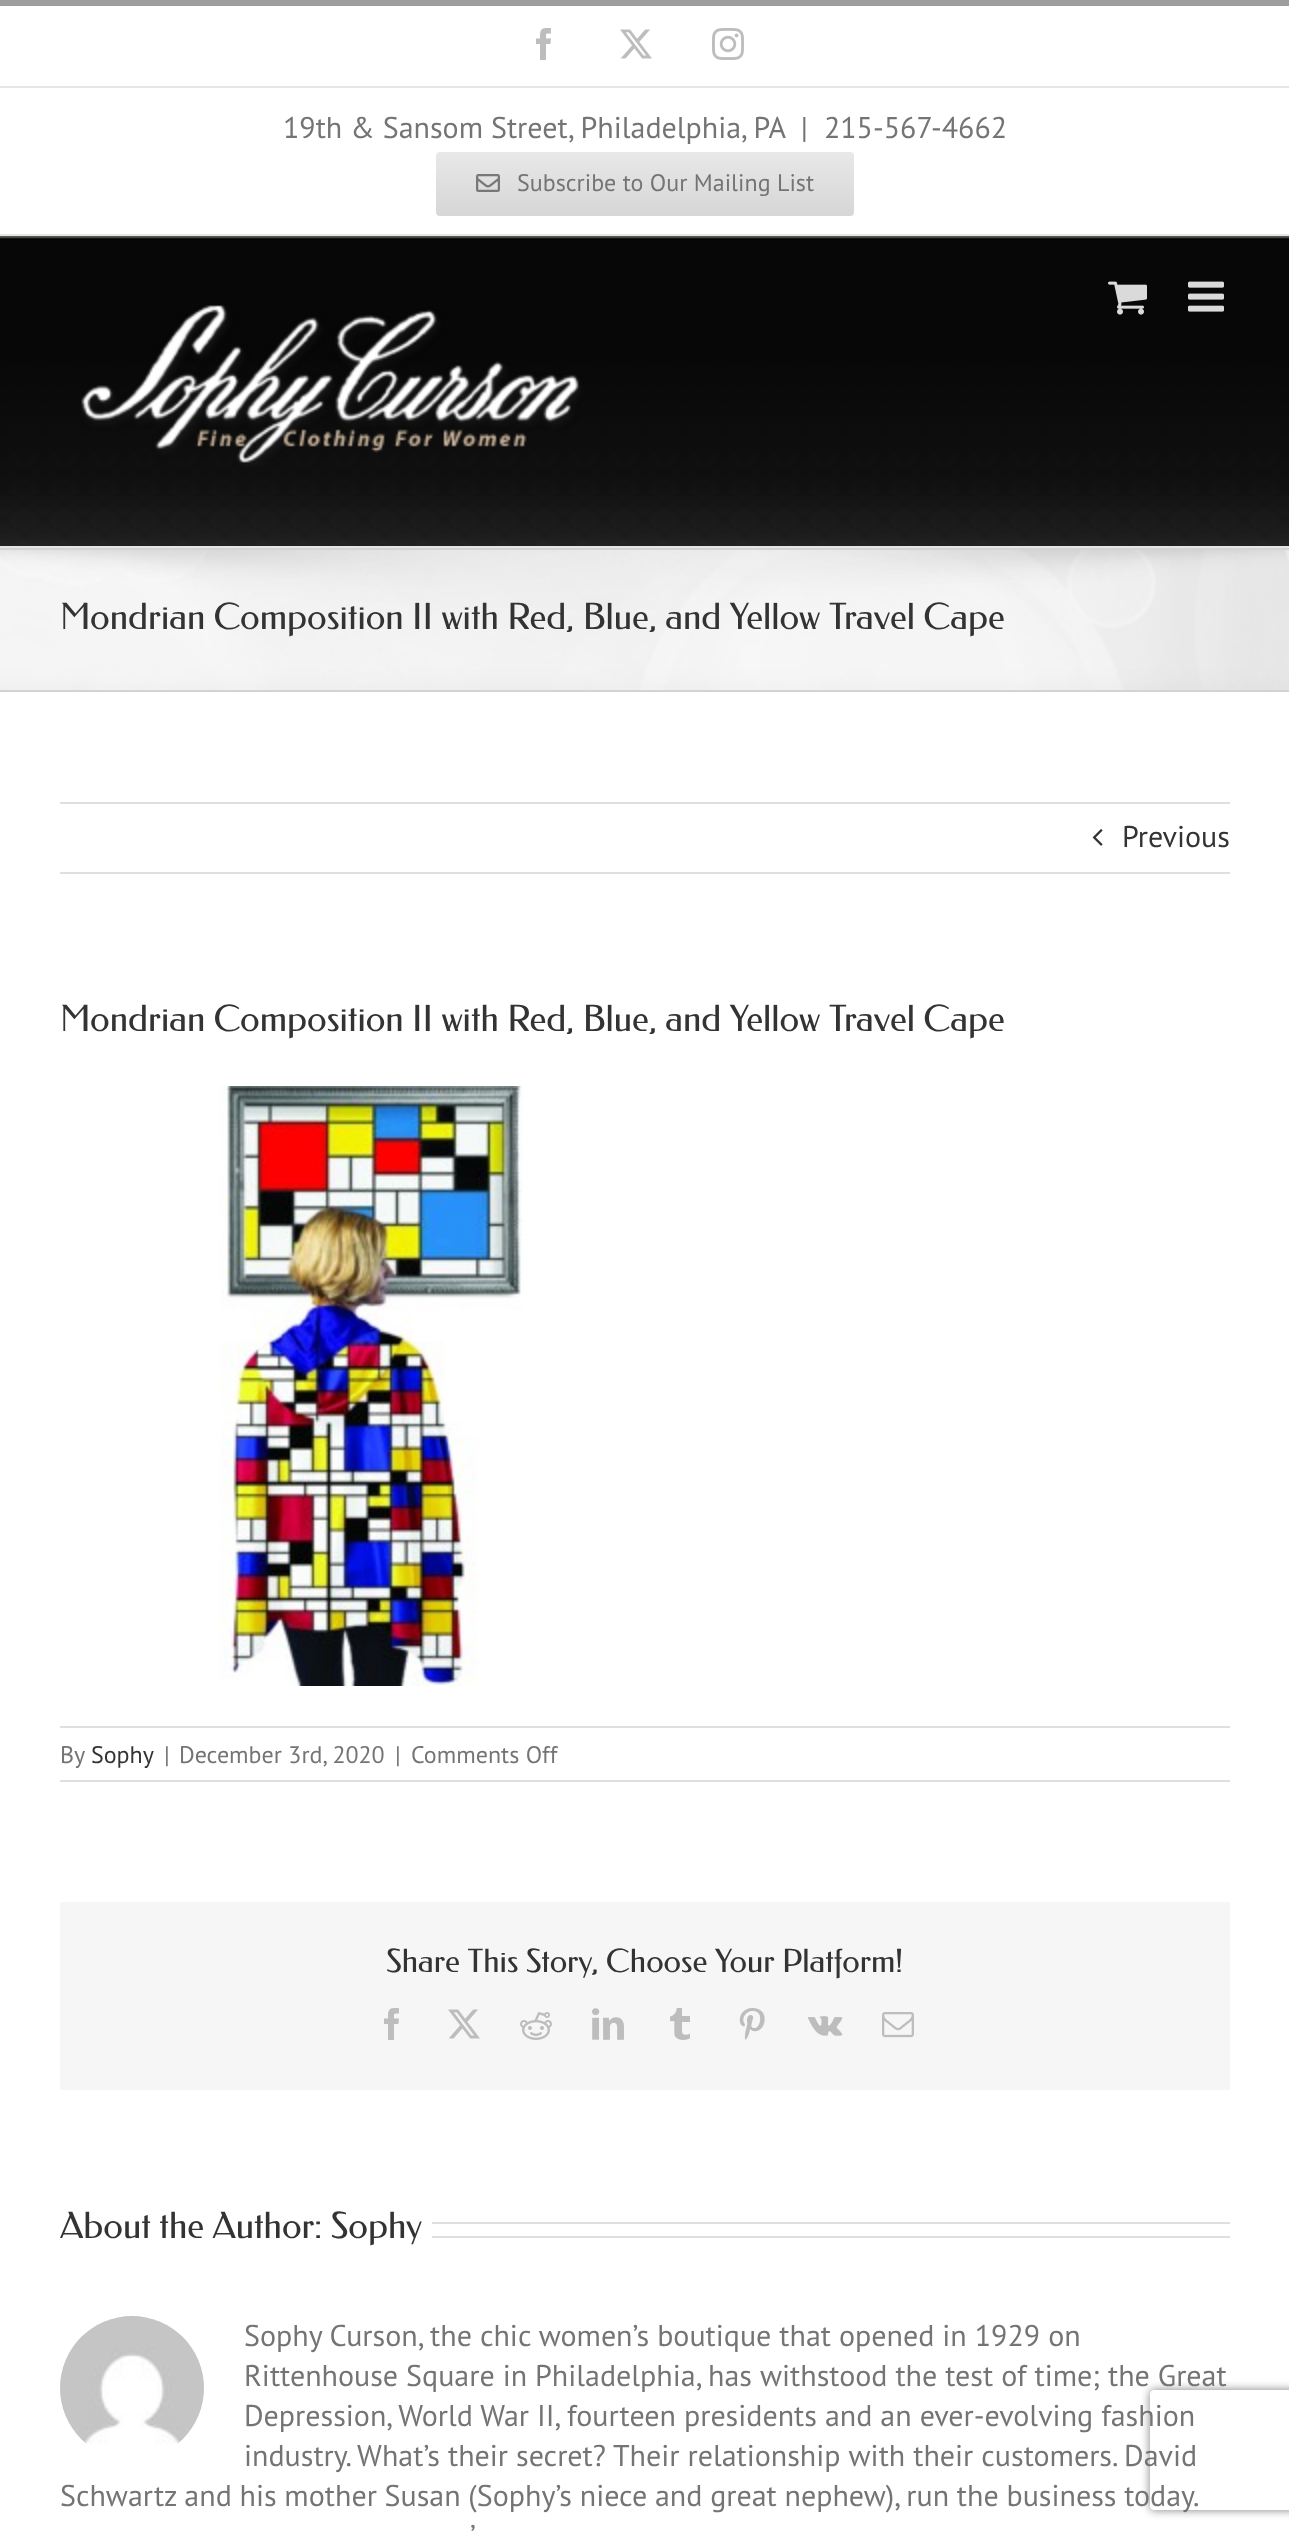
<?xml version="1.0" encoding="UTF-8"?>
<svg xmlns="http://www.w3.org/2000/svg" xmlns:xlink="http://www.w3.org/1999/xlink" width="1289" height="2538">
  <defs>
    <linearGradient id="g1" gradientUnits="userSpaceOnUse" x1="645" y1="152" x2="645" y2="216"><stop offset="0" stop-color="#e8e8e8" /><stop offset="1" stop-color="#d6d6d6" /></linearGradient>
    <clipPath id="clip1"><path d="M 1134 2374 h 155 v 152 h -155 z m 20 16 h 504 c 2 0 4 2 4 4 v 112 c 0 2 -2 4 -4 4 h -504 c -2 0 -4 -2 -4 -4 v -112 c 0 -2 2 -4 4 -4 z" clip-rule="evenodd" /></clipPath>
  </defs>
  <rect width="100%" height="100%" fill="#f6f6f6" />
  <rect y="6" width="1289" height="228" fill="#ffffff" />
  <rect width="1289" height="6" fill="#9e9e9e" />
  <rect y="234" width="1289" height="2" fill="#e5e5e5" />
  <rect y="86" width="1289" height="2" fill="#e5e5e5" />
  <image x="536" y="28" width="15" height="32" xlink:href="image1.png" />
  <image x="620" y="29" width="32" height="30" xlink:href="image2.png" />
  <image x="712" y="28" width="32" height="32" xlink:href="image3.png" />
  <rect x="436" y="152" width="418" height="64" rx="4" fill="url(#g1)" />
  <image x="476" y="174" width="24" height="18" xlink:href="image4.png" />
  <image x="0" y="236" width="1289" height="310" xlink:href="image5.png" />
  <rect y="546" width="1289" height="2" fill="#e5e5e5" />
  <image x="1108" y="281" width="39" height="34" xlink:href="image6.png" />
  <image x="1188" y="281" width="36" height="31" xlink:href="image7.png" />
  <image x="81" y="305" width="501" height="162" xlink:href="image8.png" />
  <image x="0" y="550" width="1289" height="140" xlink:href="image9.png" />
  <rect y="548" width="1289" height="2" fill="#d2d3d4" />
  <rect y="690" width="1289" height="2" fill="#d2d3d4" />
  <rect y="692" width="1289" height="1846" fill="#ffffff" />
  <rect x="60" y="802" width="1170" height="2" fill="#e0dede" />
  <rect x="60" y="872" width="1170" height="2" fill="#e0dede" />
  <image x="1092" y="829" width="11" height="17" xlink:href="image10.png" />
  <image x="219" y="1086" width="305" height="600" xlink:href="image11.png" />
  <rect x="60" y="1726" width="1170" height="2" fill="#e0dede" />
  <rect x="60" y="1780" width="1170" height="2" fill="#e0dede" />
  <rect x="60" y="1902" width="1170" height="188" fill="#f6f6f6" />
  <image x="384" y="2008" width="15" height="32" xlink:href="image12.png" />
  <image x="448" y="2009" width="32" height="30" xlink:href="image13.png" />
  <image x="520" y="2012" width="32" height="28" xlink:href="image14.png" />
  <image x="592" y="2008" width="32" height="32" xlink:href="image15.png" />
  <image x="670" y="2008" width="20" height="32" xlink:href="image16.png" />
  <image x="739" y="2008" width="26" height="32" xlink:href="image17.png" />
  <image x="808" y="2016" width="35" height="20" xlink:href="image18.png" />
  <image x="882" y="2012" width="32" height="26" xlink:href="image19.png" />
  <rect x="432" y="2222" width="798" height="2" fill="#e0dede" />
  <rect x="432" y="2236" width="798" height="2" fill="#e0dede" />
  <image x="60" y="2316" width="144" height="128" xlink:href="image20.png" />
  <g clip-path="url(#clip1)">
    <rect x="1150" y="2390" width="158" height="120" rx="4" fill="#808080" filter="blur(5px)" />
  </g>
  <text x="283" y="138" style="font-family: PT Sans; font-size: 30px; fill: #747474" xml:space="preserve">19th &amp; Sansom Street, Philadelphia, PA  |  215-567-4662</text>
  <text x="517" y="191" style="font-family: PT Sans; font-size: 24px; fill: #747474">Subscribe to Our Mailing List</text>
  <text x="60" y="629" style="font-family: Federo; font-size: 36px; fill: #333333">Mondrian Composition II with Red, Blue, and Yellow Travel Cape</text>
  <text x="1122" y="847" style="font-family: PT Sans; font-size: 30px; fill: #333333">Previous</text>
  <text x="60" y="1031" style="font-family: Federo; font-size: 36px; fill: #333333">Mondrian Composition II with Red, Blue, and Yellow Travel Cape</text>
  <text x="60" y="1763" style="font-family: PT Sans; font-size: 24px; fill: #747474">By</text>
  <text x="91" y="1763" style="font-family: PT Sans; font-size: 24px; fill: #333333">Sophy</text>
  <text x="164" y="1763" style="font-family: PT Sans; font-size: 24px; fill: #747474">|</text>
  <text x="179" y="1763" style="font-family: PT Sans; font-size: 24px; fill: #747474">December 3rd, 2020</text>
  <text x="395" y="1763" style="font-family: PT Sans; font-size: 24px; fill: #747474">|</text>
  <text x="411" y="1763" style="font-family: PT Sans; font-size: 24px; fill: #747474">Comments Off</text>
  <text x="386" y="1972" style="font-family: Federo; font-size: 32px; fill: #333333">Share This Story, Choose Your Platform!</text>
  <text x="60" y="2238" style="font-family: Federo; font-size: 36px; fill: #333333">About the Author: Sophy</text>
  <text x="244" y="2346" style="font-family: PT Sans; font-size: 30px; fill: #747474">Sophy Curson, the chic women’s boutique that opened in 1929 on</text>
  <text x="244" y="2386" style="font-family: PT Sans; font-size: 30px; fill: #747474">Rittenhouse Square in Philadelphia, has withstood the test of time; the Great</text>
  <text x="244" y="2426" style="font-family: PT Sans; font-size: 30px; fill: #747474">Depression, World War II, fourteen presidents and an ever-evolving fashion</text>
  <text x="244" y="2466" style="font-family: PT Sans; font-size: 30px; fill: #747474">industry. What’s their secret? Their relationship with their customers. David</text>
  <text x="60" y="2506" word-spacing="-0.25" style="font-family: PT Sans; font-size: 30px; fill: #747474">Schwartz and his mother Susan (Sophy’s niece and great nephew), run the business today.</text>
  <text x="470" y="2546" style="font-family: PT Sans; font-size: 30px; fill: #747474">’</text>
</svg>
